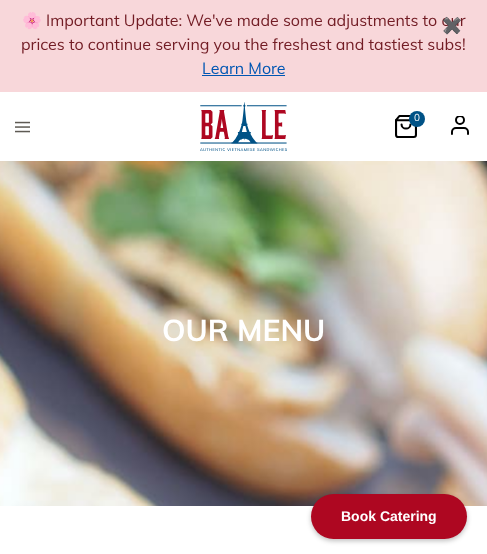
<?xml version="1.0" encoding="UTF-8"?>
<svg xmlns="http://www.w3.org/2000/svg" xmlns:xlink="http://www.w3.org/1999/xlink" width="487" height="554">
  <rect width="100%" height="100%" fill="#ffffff" />
  <rect width="487" height="92" fill="#f8d7da" />
  <rect x="202" y="75" width="83" height="1" fill="#0056b3" />
  <image x="200" y="102" width="87" height="49" xlink:href="image1.png" />
  <image x="395" y="115" width="22" height="23" xlink:href="image2.png" />
  <circle cx="417" cy="119" r="8" fill="#005286" />
  <image x="451" y="116" width="18" height="19" xlink:href="image3.png" />
  <image x="15" y="121" width="15" height="12" xlink:href="image4.png" />
  <image x="0" y="161" width="487" height="345" xlink:href="image5.png" />
  <rect x="311" y="496" width="156" height="45" rx="22.5" fill="#000000" fill-opacity="0.25" filter="blur(2.5px)" />
  <rect x="311" y="494" width="156" height="45" rx="22.5" fill="#ae0721" />
  <text x="22" y="26" style="font-family: Noto Color Emoji; font-size: 16px; fill: #721c24">🌸</text>
  <text x="46" y="26" style="font-family: Muli; font-size: 16px; fill: #721c24">Important Update: We've made some adjustments to our</text>
  <text x="442" y="31" style="font-family: Noto Color Emoji; font-size: 16px; font-weight: bold; letter-spacing: 1px; fill: #ffffff">✖️</text>
  <text x="21" y="50" style="font-family: Muli; font-size: 16px; fill: #721c24">prices to continue serving you the freshest and tastiest subs!</text>
  <text x="202" y="74" style="font-family: Muli; font-size: 16px; fill: #0056b3">Learn More</text>
  <text x="414" y="121" style="font-family: Muli; font-size: 10px; fill: #ffffff">0</text>
  <text x="162" y="341" style="font-family: Muli; font-size: 30px; font-weight: bold; fill: #ffffff">OUR MENU</text>
  <text x="341" y="521" style="font-family: Liberation Sans; font-size: 14px; font-weight: bold; fill: #ffffff">Book Catering</text>
</svg>
